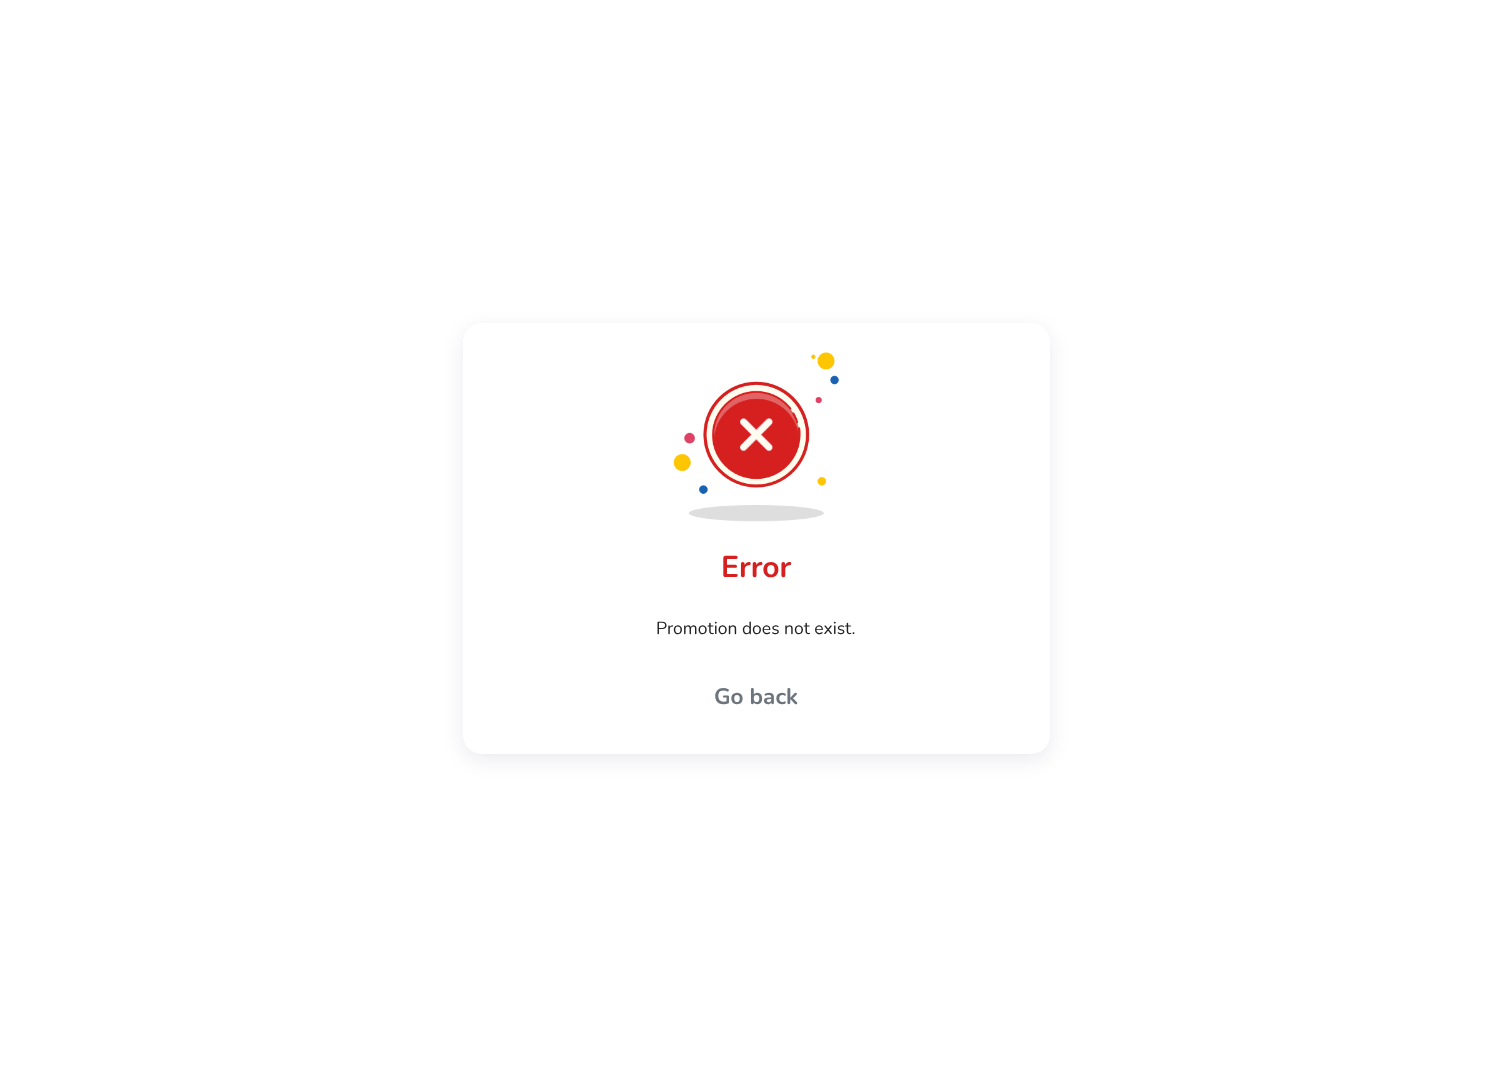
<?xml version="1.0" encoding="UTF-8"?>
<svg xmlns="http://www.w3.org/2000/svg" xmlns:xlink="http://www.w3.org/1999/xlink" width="1511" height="1074">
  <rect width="100%" height="100%" fill="#ffffff" />
  <rect x="463" y="329" width="587" height="431" rx="19" fill="#23083d" fill-opacity="0.09" filter="blur(9.5px)" />
  <rect x="463" y="323" width="587" height="431" rx="19" fill="#ffffff" />
  <image x="673" y="352" width="166" height="170" xlink:href="image1.png" />
  <text x="721" y="577" style="font-family: Nunito; font-size: 30px; font-weight: bold; fill: #d62020">Error</text>
  <text x="656" y="634" style="font-family: Nunito; font-size: 17.5px; fill: #222222">Promotion does not exist.</text>
  <text x="714" y="704" style="font-family: Nunito; font-size: 22.5px; font-weight: bold; fill: #6c757d">Go back</text>
</svg>
